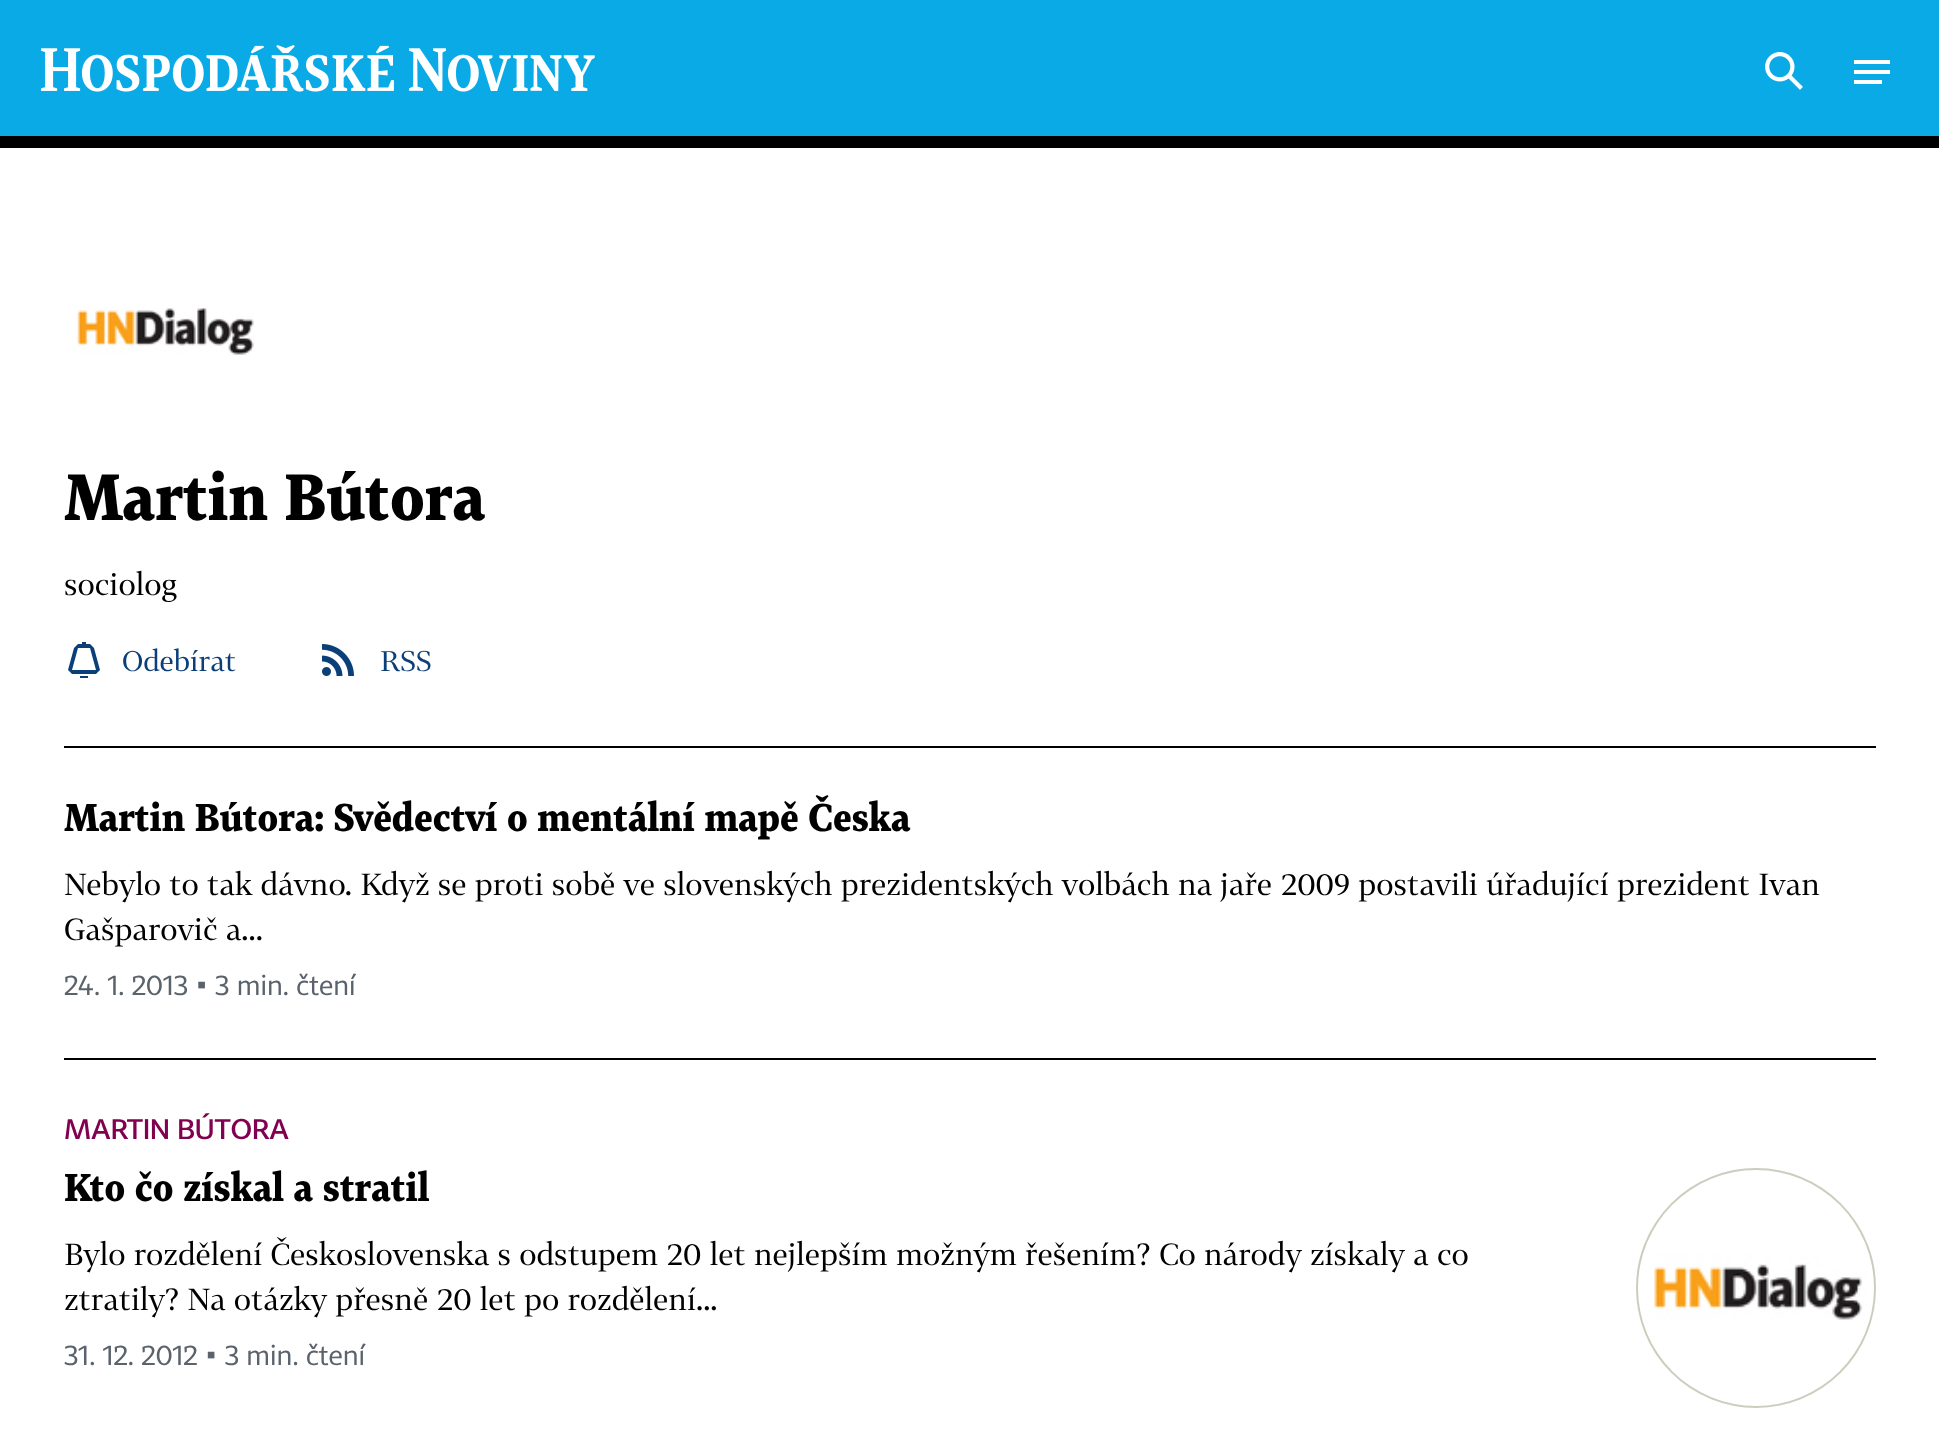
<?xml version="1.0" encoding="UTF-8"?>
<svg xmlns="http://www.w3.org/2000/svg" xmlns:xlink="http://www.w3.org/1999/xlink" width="1939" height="1442">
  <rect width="100%" height="100%" fill="#ffffff" />
  <rect width="1939" height="136" fill="#0aaae6" />
  <image x="41" y="45" width="554" height="47" xlink:href="image1.png" />
  <image x="1765" y="52" width="38" height="38" xlink:href="image2.png" />
  <path d="M 1854 64 v -4 h 36 v 4 z m 0 10 v -4 h 36 v 4 z m 0 6 v 4 h 28 v -4 z" fill="#ffffff" />
  <rect y="136" width="1939" height="12" fill="#000000" />
  <image x="77" y="307" width="177" height="48" xlink:href="image3.png" />
  <image x="68" y="642" width="32" height="36" xlink:href="image4.png" />
  <image x="322" y="644" width="32" height="32" xlink:href="image5.png" />
  <rect x="64" y="746" width="1812" height="2" fill="#000000" />
  <rect x="64" y="1058" width="1812" height="2" fill="#000000" />
  <circle cx="1756" cy="1288" r="119" fill="#cdcdbe" stroke="#cdcdbe" stroke-width="2" />
  <image x="1638" y="1170" width="236" height="236" xlink:href="image6.png" />
  <text x="64" y="520" style="font-family: 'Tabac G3'; font-size: 64px; font-weight: bold; fill: #000000">Martin Bútora</text>
  <text x="64" y="595" style="font-family: 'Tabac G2'; font-size: 30px; fill: #000000">sociolog</text>
  <text x="122" y="671" style="font-family: 'Tabac G2'; font-size: 28px; fill: #0a3f78">Odebírat</text>
  <text x="380" y="671" style="font-family: 'Tabac G2'; font-size: 28px; fill: #0a3f78">RSS</text>
  <text x="64" y="831" style="font-family: 'Tabac G3'; font-size: 38px; font-weight: bold; fill: #000000">Martin Bútora: Svědectví o mentální mapě Česka</text>
  <text x="64" y="895" style="font-family: 'Tabac G2'; font-size: 30px; fill: #000000">Nebylo to tak dávno. Když se proti sobě ve slovenských prezidentských volbách na jaře 2009 postavili úřadující prezident Ivan</text>
  <text x="64" y="940" style="font-family: 'Tabac G2'; font-size: 30px; fill: #000000">Gašparovič a...</text>
  <text x="64" y="995" style="font-family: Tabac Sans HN; font-size: 28px; fill: #5a626c">24. 1. 2013 ▪ 3 min. čtení</text>
  <text x="64" y="1139" style="font-family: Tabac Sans; font-size: 28px; font-weight: 500; fill: #820050">MARTIN BÚTORA</text>
  <text x="64" y="1201" style="font-family: 'Tabac G3'; font-size: 38px; font-weight: bold; fill: #000000">Kto čo získal a stratil</text>
  <text x="64" y="1265" style="font-family: 'Tabac G2'; font-size: 30px; fill: #000000">Bylo rozdělení Československa s odstupem 20 let nejlepším možným řešením? Co národy získaly a co</text>
  <text x="64" y="1310" style="font-family: 'Tabac G2'; font-size: 30px; fill: #000000">ztratily? Na otázky přesně 20 let po rozdělení...</text>
  <text x="64" y="1365" style="font-family: Tabac Sans HN; font-size: 28px; fill: #5a626c">31. 12. 2012 ▪ 3 min. čtení</text>
</svg>
